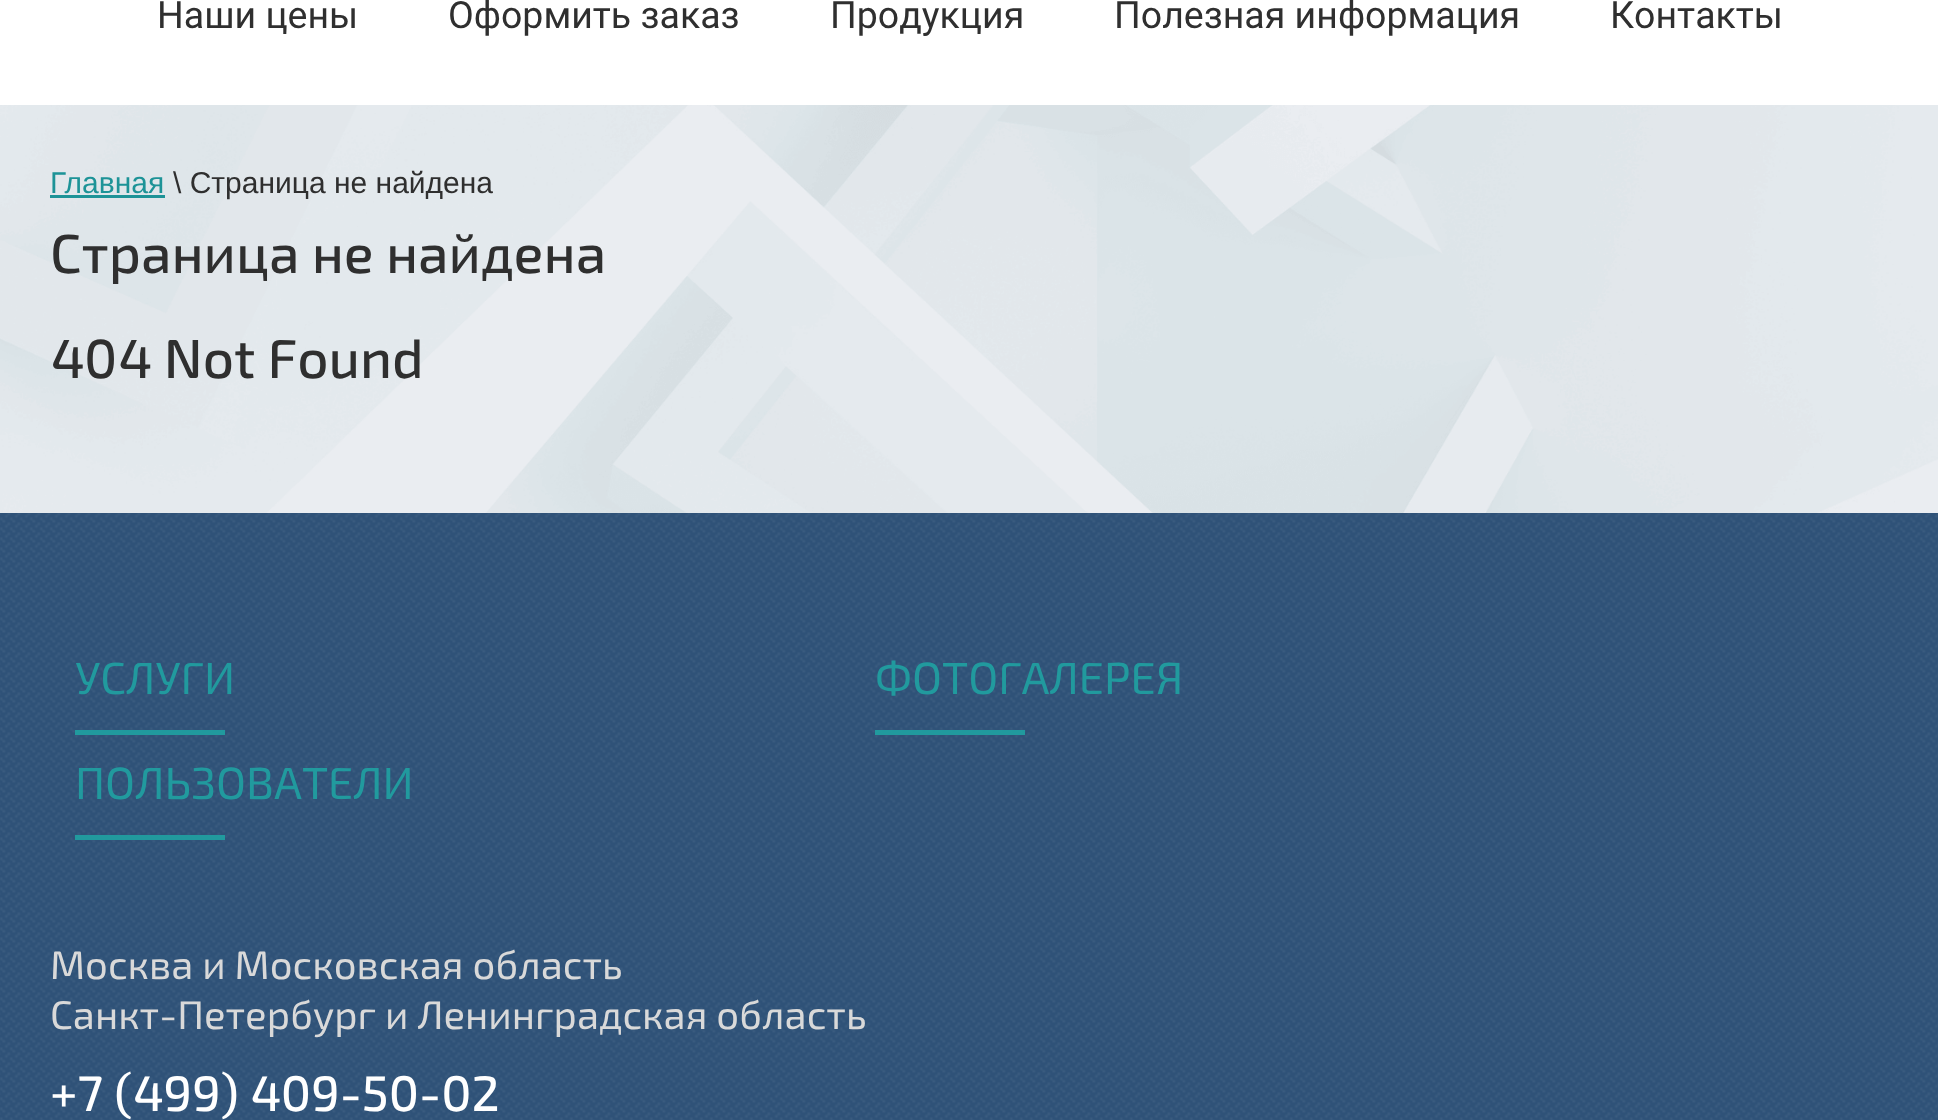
<?xml version="1.0" encoding="UTF-8"?>
<svg xmlns="http://www.w3.org/2000/svg" xmlns:xlink="http://www.w3.org/1999/xlink" width="1938" height="1120">
  <rect width="100%" height="100%" fill="#ffffff" />
  <image x="0" y="105" width="1938" height="408" xlink:href="image1.png" />
  <rect y="105" width="1938" height="408" fill="#2f5278" fill-opacity="0.1" />
  <rect x="50" y="195" width="115" height="3" fill="#1d9397" />
  <rect y="513" width="1938" height="607" fill="#2f5278" />
  <image x="0" y="513" width="1938" height="607" xlink:href="image2.png" />
  <rect x="75" y="730" width="150" height="5" fill="#219a9e" />
  <rect x="875" y="730" width="150" height="5" fill="#219a9e" />
  <rect x="75" y="835" width="150" height="5" fill="#219a9e" />
  <text x="157" y="28" style="font-family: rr; font-size: 37.5px; fill: #2f2f2f">Наши цены</text>
  <text x="448" y="28" style="font-family: rr; font-size: 37.5px; fill: #2f2f2f">Оформить заказ</text>
  <text x="830" y="28" style="font-family: rr; font-size: 37.5px; fill: #2f2f2f">Продукция</text>
  <text x="1114" y="28" style="font-family: rr; font-size: 37.5px; fill: #2f2f2f">Полезная информация</text>
  <text x="1610" y="28" style="font-family: rr; font-size: 37.5px; fill: #2f2f2f">Контакты</text>
  <text x="50" y="193" style="font-family: Liberation Sans; font-size: 30px; fill: #1d9397">Главная</text>
  <text x="173" y="193" style="font-family: Liberation Sans; font-size: 30px; fill: #2f2f2f">\ Страница не найдена</text>
  <text x="50" y="273" style="font-family: 'Exo 2'; font-size: 55px; font-weight: 500; fill: #2f2f2f">Страница не найдена</text>
  <text x="50" y="378" style="font-family: 'Exo 2'; font-size: 55px; font-weight: 500; fill: #2f2f2f">404 Not Found</text>
  <text x="75" y="694" style="font-family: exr; font-size: 45px; fill: #219a9e">УСЛУГИ</text>
  <text x="875" y="694" style="font-family: exr; font-size: 45px; fill: #219a9e">ФОТОГАЛЕРЕЯ</text>
  <text x="75" y="799" style="font-family: exr; font-size: 45px; fill: #219a9e">ПОЛЬЗОВАТЕЛИ</text>
  <text x="50" y="979" style="font-family: exr; font-size: 40px; fill: #d9d9d9">Москва и Московская область</text>
  <text x="50" y="1029" style="font-family: exr; font-size: 40px; fill: #d9d9d9">Санкт-Петербург и Ленинградская область</text>
  <text x="50" y="1111" style="font-family: 'Exo 2'; font-size: 50px; font-weight: 500; fill: #ffffff">+7 (499) 409-50-02</text>
</svg>
